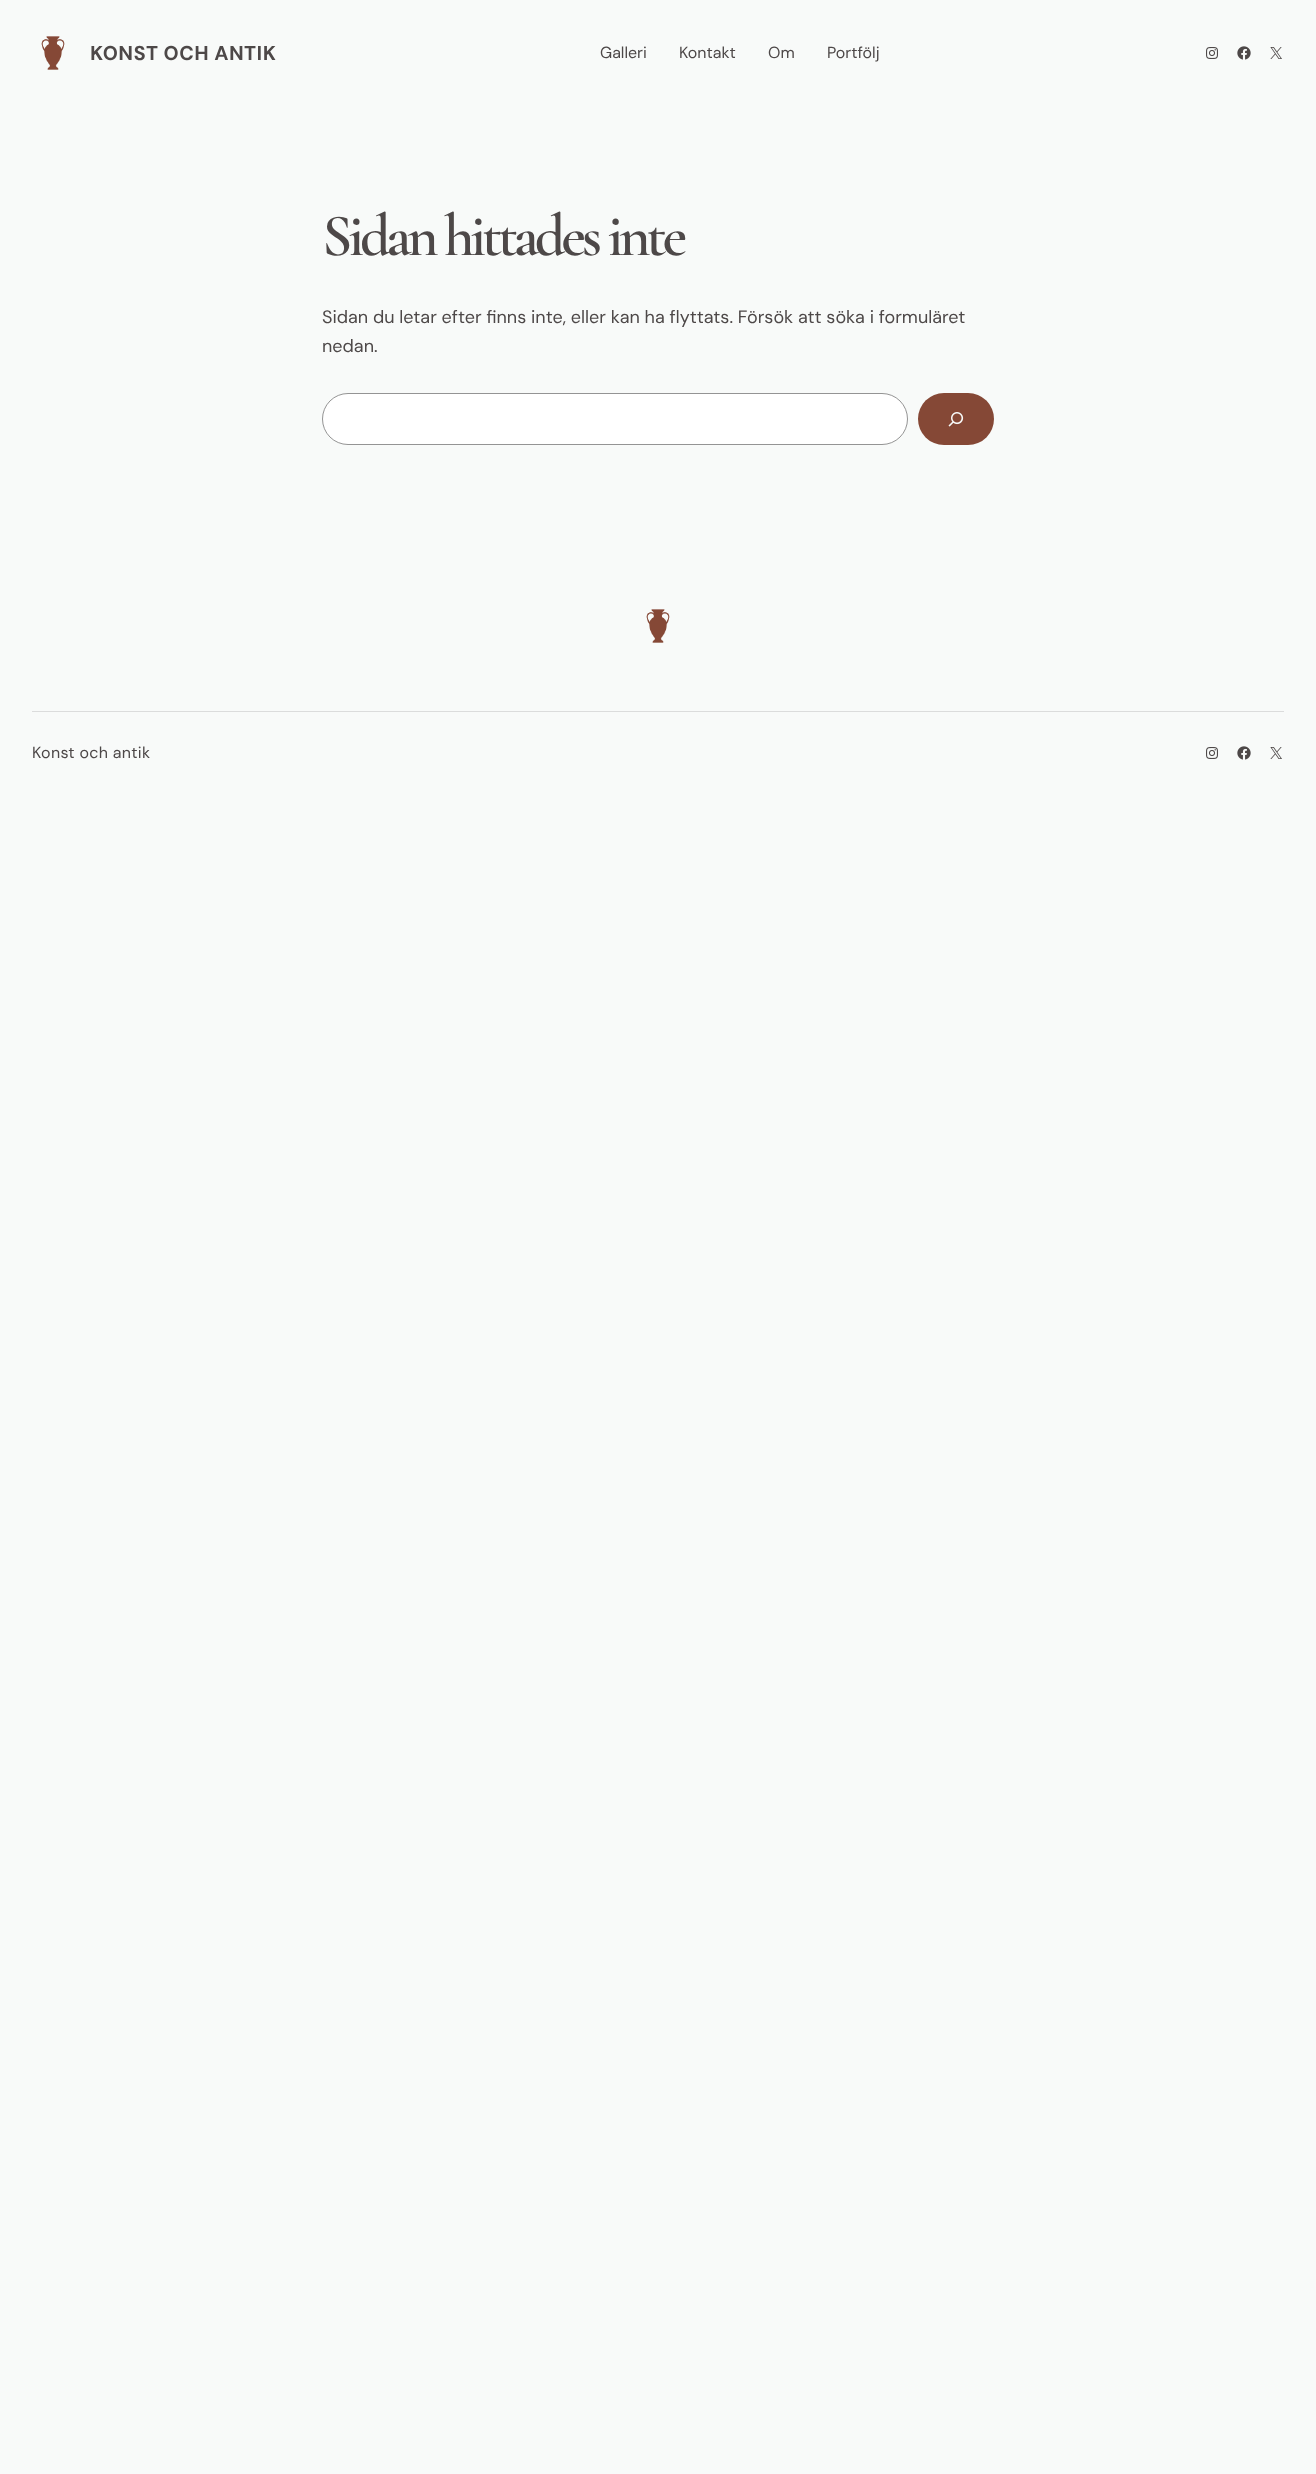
<?xml version="1.0" encoding="UTF-8"?>
<svg xmlns="http://www.w3.org/2000/svg" xmlns:xlink="http://www.w3.org/1999/xlink" width="1316" height="2474">
  <rect width="100%" height="100%" fill="#f8faf9" />
  <image x="41" y="36" width="24" height="34" xlink:href="image1.png" />
  <image x="1206" y="47" width="12" height="12" xlink:href="image2.png" />
  <image x="1237" y="46" width="14" height="14" xlink:href="image3.png" />
  <image x="1270" y="47" width="12" height="12" xlink:href="image4.png" />
  <rect x="322.5" y="393.5" width="585" height="51" rx="25.5" fill="#ffffff" stroke="#949494" />
  <rect x="918" y="393" width="76" height="52" rx="26" fill="#854836" />
  <image x="948" y="412" width="16" height="15" xlink:href="image5.png" />
  <image x="646" y="609" width="24" height="34" xlink:href="image1.png" />
  <rect x="32" y="711" width="1252" height="1" fill="#dbdcdc" />
  <image x="1206" y="747" width="12" height="12" xlink:href="image2.png" />
  <image x="1237" y="746" width="14" height="14" xlink:href="image3.png" />
  <image x="1270" y="747" width="12" height="12" xlink:href="image4.png" />
  <text x="90" y="60" style="font-family: DM Sans; font-size: 20px; font-weight: bold; letter-spacing: 0.4px; fill: #4d4848">KONST OCH ANTIK</text>
  <text x="600" y="58" style="font-family: DM Sans; font-size: 16px; fill: #4d4848">Galleri</text>
  <text x="679" y="58" style="font-family: DM Sans; font-size: 16px; fill: #4d4848">Kontakt</text>
  <text x="768" y="58" style="font-family: DM Sans; font-size: 16px; fill: #4d4848">Om</text>
  <text x="827" y="58" style="font-family: DM Sans; font-size: 16px; fill: #4d4848">Portfölj</text>
  <text x="322" y="255" style="font-family: Cormorant Garamond; font-size: 60px; font-weight: 600; letter-spacing: -4.25px; fill: #4d4848">Sidan hittades inte</text>
  <text x="322" y="323" style="font-family: DM Sans; font-size: 18px; fill: #4d4848">Sidan du letar efter finns inte, eller kan ha flyttats. Försök att söka i formuläret</text>
  <text x="322" y="352" style="font-family: DM Sans; font-size: 18px; fill: #4d4848">nedan.</text>
  <text x="32" y="758" style="font-family: DM Sans; font-size: 16px; letter-spacing: 0.3px; fill: #4d4848">Konst och antik</text>
</svg>
